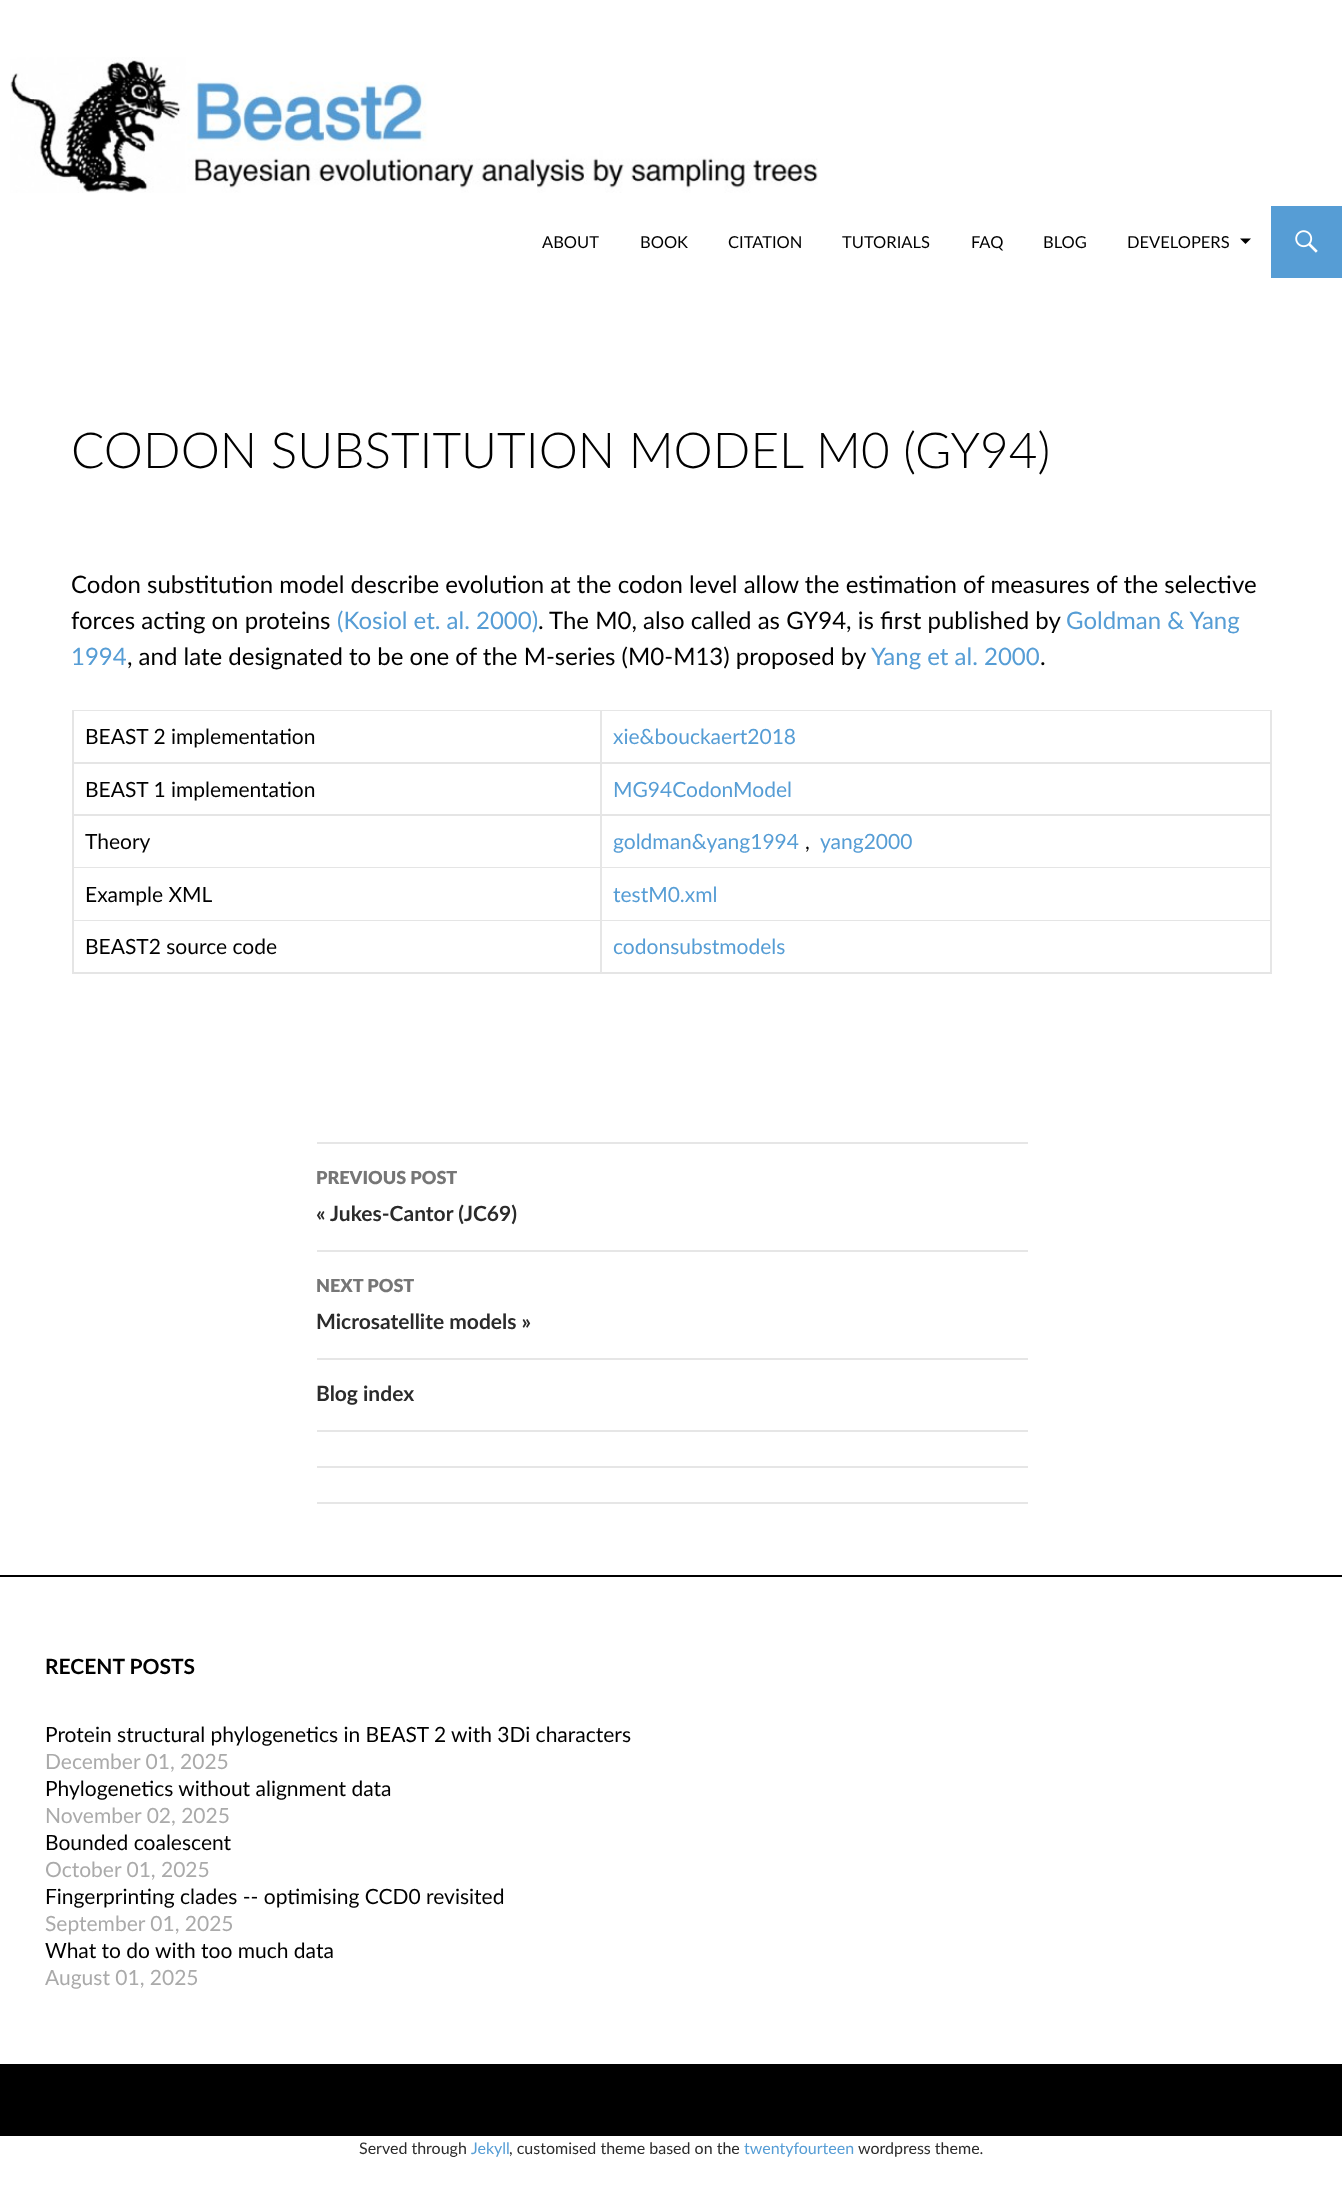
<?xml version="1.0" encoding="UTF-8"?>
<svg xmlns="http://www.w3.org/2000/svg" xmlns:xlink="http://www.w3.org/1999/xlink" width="1342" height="2208">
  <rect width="100%" height="100%" fill="#ffffff" />
  <image x="10" y="57" width="808" height="136" xlink:href="image1.png" />
  <path d="M 1240 238.5 l 5.5 5.5 l 5.5 -5.5 z" fill="#000000" />
  <rect x="1271" y="206" width="71" height="72" fill="#569dd5" />
  <image x="1295" y="230" width="23" height="23" xlink:href="image2.png" />
  <path d="M 72 710 h 1200 v 1 h -1198 z" fill="#e6e6e6" />
  <path d="M 72 974 v -264 l 2 1 v 263 z" fill="#000000" fill-opacity="0.1" />
  <path d="M 602 711 v 53 l -2 -2 v -51 z" fill="#e6e6e6" />
  <path d="M 602 764 h -528 v -2 h 526 z" fill="#000000" fill-opacity="0.1" />
  <path d="M 1272 711 v 53 l -2 -2 v -51 z" fill="#e6e6e6" />
  <path d="M 1272 764 h -670 v -2 h 668 z" fill="#000000" fill-opacity="0.1" />
  <path d="M 602 764 v 52 l -2 -2 v -50 z" fill="#e6e6e6" />
  <path d="M 602 816 h -528 v -2 h 526 z" fill="#000000" fill-opacity="0.1" />
  <path d="M 1272 764 v 52 l -2 -2 v -50 z" fill="#e6e6e6" />
  <path d="M 1272 816 h -670 v -2 h 668 z" fill="#000000" fill-opacity="0.1" />
  <path d="M 602 816 v 52 l -2 -1 v -51 z" fill="#e6e6e6" />
  <path d="M 602 868 h -528 v -1 h 526 z" fill="#000000" fill-opacity="0.1" />
  <path d="M 1272 816 v 52 l -2 -1 v -51 z" fill="#e6e6e6" />
  <path d="M 1272 868 h -670 v -1 h 668 z" fill="#000000" fill-opacity="0.1" />
  <path d="M 602 868 v 53 l -2 -1 v -52 z" fill="#e6e6e6" />
  <path d="M 602 921 h -528 v -1 h 526 z" fill="#000000" fill-opacity="0.1" />
  <path d="M 1272 868 v 53 l -2 -1 v -52 z" fill="#e6e6e6" />
  <path d="M 1272 921 h -670 v -1 h 668 z" fill="#000000" fill-opacity="0.1" />
  <path d="M 602 921 v 53 l -2 -2 v -51 z" fill="#e6e6e6" />
  <path d="M 602 974 h -528 v -2 h 526 z" fill="#000000" fill-opacity="0.1" />
  <path d="M 1272 921 v 53 l -2 -2 v -51 z" fill="#e6e6e6" />
  <path d="M 1272 974 h -670 v -2 h 668 z" fill="#000000" fill-opacity="0.1" />
  <rect x="317" y="1142" width="711" height="2" fill="#e6e6e6" />
  <rect x="317" y="1250" width="711" height="2" fill="#e6e6e6" />
  <rect x="317" y="1358" width="711" height="2" fill="#e6e6e6" />
  <rect x="317" y="1430" width="711" height="2" fill="#e6e6e6" />
  <rect x="317" y="1466" width="711" height="2" fill="#e6e6e6" />
  <rect x="317" y="1502" width="711" height="2" fill="#e6e6e6" />
  <rect y="1575" width="1342" height="2" fill="#000000" />
  <rect y="2064" width="1342" height="72" fill="#000000" />
  <text x="542" y="248" style="font-family: Lato; font-size: 16.5px; fill: #000000">ABOUT</text>
  <text x="640" y="248" style="font-family: Lato; font-size: 16.5px; fill: #000000">BOOK</text>
  <text x="728" y="248" style="font-family: Lato; font-size: 16.5px; fill: #000000">CITATION</text>
  <text x="842" y="248" style="font-family: Lato; font-size: 16.5px; fill: #000000">TUTORIALS</text>
  <text x="971" y="248" style="font-family: Lato; font-size: 16.5px; fill: #000000">FAQ</text>
  <text x="1043" y="248" style="font-family: Lato; font-size: 16.5px; fill: #000000">BLOG</text>
  <text x="1127" y="248" style="font-family: Lato; font-size: 16.5px; fill: #000000">DEVELOPERS</text>
  <text x="71" y="468" style="font-family: Lato; font-size: 49.5px; font-weight: 300; fill: #000000">CODON SUBSTITUTION MODEL M0 (GY94)</text>
  <text x="71" y="593" style="font-family: Lato; font-size: 24px; fill: #000000">Codon substitution model describe evolution at the codon level allow the estimation of measures of the selective</text>
  <text x="71" y="629" style="font-family: Lato; font-size: 24px; fill: #000000">forces acting on proteins</text>
  <text x="337" y="629" style="font-family: Lato; font-size: 24px; fill: #569dd5">(Kosiol et. al. 2000)</text>
  <text x="538" y="629" style="font-family: Lato; font-size: 24px; fill: #000000">.</text>
  <text x="549" y="629" style="font-family: Lato; font-size: 24px; fill: #000000">The M0, also called as GY94, is first published by</text>
  <text x="1066" y="629" style="font-family: Lato; font-size: 24px; fill: #569dd5">Goldman &amp; Yang</text>
  <text x="71" y="665" style="font-family: Lato; font-size: 24px; fill: #569dd5">1994</text>
  <text x="127" y="665" style="font-family: Lato; font-size: 24px; fill: #000000">, and late designated to be one of the M-series (M0-M13) proposed by</text>
  <text x="871" y="665" style="font-family: Lato; font-size: 24px; fill: #569dd5">Yang et al. 2000</text>
  <text x="1040" y="665" style="font-family: Lato; font-size: 24px; fill: #000000">.</text>
  <text x="85" y="744" style="font-family: Lato; font-size: 21px; fill: #000000">BEAST 2 implementation</text>
  <text x="613" y="744" style="font-family: Lato; font-size: 21px; fill: #569dd5">xie&amp;bouckaert2018</text>
  <text x="85" y="797" style="font-family: Lato; font-size: 21px; fill: #000000">BEAST 1 implementation</text>
  <text x="613" y="797" style="font-family: Lato; font-size: 21px; fill: #569dd5">MG94CodonModel</text>
  <text x="85" y="849" style="font-family: Lato; font-size: 21px; fill: #000000">Theory</text>
  <text x="613" y="849" style="font-family: Lato; font-size: 21px; fill: #569dd5">goldman&amp;yang1994</text>
  <text x="805" y="849" style="font-family: Lato; font-size: 21px; fill: #000000">,</text>
  <text x="820" y="849" style="font-family: Lato; font-size: 21px; fill: #569dd5">yang2000</text>
  <text x="85" y="902" style="font-family: Lato; font-size: 21px; fill: #000000">Example XML</text>
  <text x="613" y="902" style="font-family: Lato; font-size: 21px; fill: #569dd5">testM0.xml</text>
  <text x="85" y="954" style="font-family: Lato; font-size: 21px; fill: #000000">BEAST2 source code</text>
  <text x="613" y="954" style="font-family: Lato; font-size: 21px; fill: #569dd5">codonsubstmodels</text>
  <text x="316" y="1184" style="font-family: Lato; font-size: 18px; font-weight: 900; fill: #767676">PREVIOUS POST</text>
  <text x="316" y="1221" style="font-family: Lato; font-size: 21px; font-weight: bold; fill: #2b2b2b">« Jukes-Cantor (JC69)</text>
  <text x="316" y="1292" style="font-family: Lato; font-size: 18px; font-weight: 900; fill: #767676">NEXT POST</text>
  <text x="316" y="1329" style="font-family: Lato; font-size: 21px; font-weight: bold; fill: #2b2b2b">Microsatellite models »</text>
  <text x="316" y="1401" style="font-family: Lato; font-size: 21px; font-weight: bold; fill: #2b2b2b">Blog index</text>
  <text x="45" y="1674" style="font-family: Lato; font-size: 21px; font-weight: bold; fill: #000000">RECENT POSTS</text>
  <text x="45" y="1742" style="font-family: Lato; font-size: 21px; fill: #000000">Protein structural phylogenetics in BEAST 2 with 3Di characters</text>
  <text x="45" y="1769" style="font-family: Lato; font-size: 21px; fill: #aaaaaa">December 01, 2025</text>
  <text x="45" y="1796" style="font-family: Lato; font-size: 21px; fill: #000000">Phylogenetics without alignment data</text>
  <text x="45" y="1823" style="font-family: Lato; font-size: 21px; fill: #aaaaaa">November 02, 2025</text>
  <text x="45" y="1850" style="font-family: Lato; font-size: 21px; fill: #000000">Bounded coalescent</text>
  <text x="45" y="1877" style="font-family: Lato; font-size: 21px; fill: #aaaaaa">October 01, 2025</text>
  <text x="45" y="1904" style="font-family: Lato; font-size: 21px; fill: #000000">Fingerprinting clades -- optimising CCD0 revisited</text>
  <text x="45" y="1931" style="font-family: Lato; font-size: 21px; fill: #aaaaaa">September 01, 2025</text>
  <text x="45" y="1958" style="font-family: Lato; font-size: 21px; fill: #000000">What to do with too much data</text>
  <text x="45" y="1985" style="font-family: Lato; font-size: 21px; fill: #aaaaaa">August 01, 2025</text>
  <text x="359" y="2154" style="font-family: Lato; font-size: 16px; fill: #2b2b2b">Served through</text>
  <text x="471" y="2154" style="font-family: Lato; font-size: 16px; fill: #569dd5">Jekyll</text>
  <text x="509" y="2154" style="font-family: Lato; font-size: 16px; fill: #2b2b2b">, customised theme based on the</text>
  <text x="744" y="2154" style="font-family: Lato; font-size: 16px; fill: #569dd5">twentyfourteen</text>
  <text x="858" y="2154" style="font-family: Lato; font-size: 16px; fill: #2b2b2b">wordpress theme.</text>
</svg>
